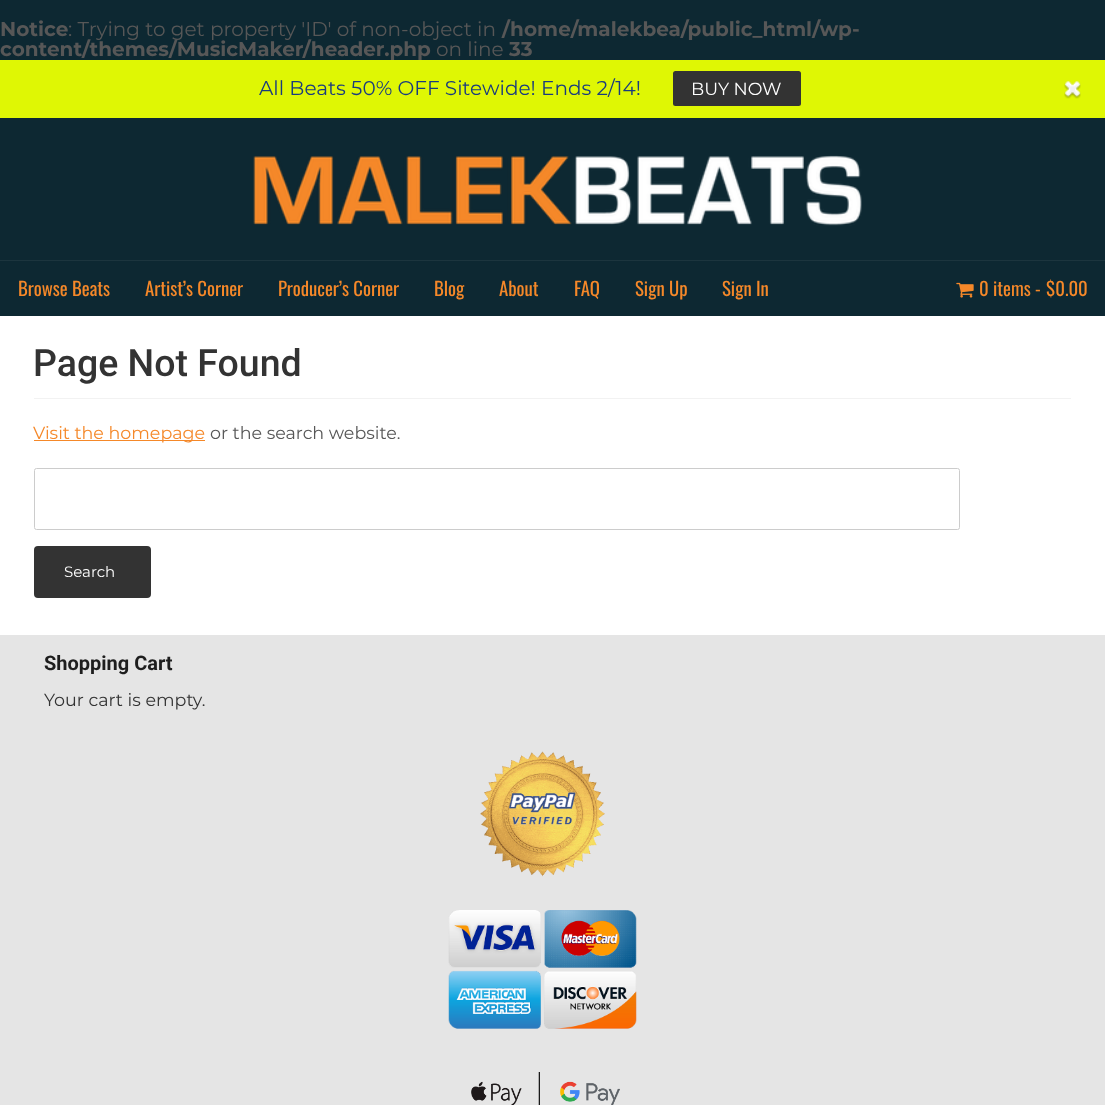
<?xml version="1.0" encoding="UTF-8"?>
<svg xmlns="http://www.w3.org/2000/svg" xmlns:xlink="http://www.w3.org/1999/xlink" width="1105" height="1105">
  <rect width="100%" height="100%" fill="#0d2832" />
  <rect y="60" width="1105" height="58" fill="#dff704" />
  <rect x="673" y="71" width="128" height="35" rx="2.5" fill="#333333" />
  <image x="1064" y="81" width="17" height="18" xlink:href="image1.png" />
  <image x="253" y="155" width="609" height="71" xlink:href="image2.png" />
  <rect y="260" width="1105" height="1" fill="#1c353e" />
  <image x="956" y="282" width="18" height="16" xlink:href="image3.png" />
  <rect y="316" width="1105" height="319" fill="#ffffff" />
  <rect x="34" y="398" width="1037" height="1" fill="#f2f2f2" />
  <rect x="34" y="440" width="171" height="1" fill="#f58829" />
  <rect x="34.5" y="468.5" width="925" height="61" rx="2" fill="none" stroke="#cccccc" />
  <rect x="34" y="546" width="117" height="52" rx="4" fill="#333333" />
  <rect y="635" width="1105" height="470" fill="#e5e5e5" />
  <image x="480" y="751" width="125" height="126" xlink:href="image4.png" />
  <image x="448" y="910" width="189" height="119" xlink:href="image5.png" />
  <image x="471" y="1072" width="149" height="33" xlink:href="image6.png" />
  <text x="0" y="36" style="font-family: Montserrat; font-size: 20px; font-weight: bold; fill: #575757">Notice</text>
  <text x="68" y="36" style="font-family: Montserrat; font-size: 20px; fill: #575757">: Trying to get property 'ID' of non-object in</text>
  <text x="502" y="36" style="font-family: Montserrat; font-size: 20px; font-weight: bold; fill: #575757">/home/malekbea/public_html/wp-</text>
  <text x="0" y="56" style="font-family: Montserrat; font-size: 20px; font-weight: bold; fill: #575757">content/themes/MusicMaker/header.php</text>
  <text x="436" y="56" style="font-family: Montserrat; font-size: 20px; fill: #575757">on line</text>
  <text x="509" y="56" style="font-family: Montserrat; font-size: 20px; font-weight: bold; fill: #575757">33</text>
  <text x="259" y="95" style="font-family: Montserrat; font-size: 20px; fill: #193b7f">All Beats 50% OFF Sitewide! Ends 2/14!</text>
  <text x="691" y="95" style="font-family: Montserrat; font-size: 17.5px; fill: #ffffff">BUY NOW</text>
  <text x="18" y="296" style="font-family: Oswald; font-size: 18.75px; fill: #f58829">Browse Beats</text>
  <text x="145" y="296" style="font-family: Oswald; font-size: 18.75px; fill: #f58829">Artist’s Corner</text>
  <text x="278" y="296" style="font-family: Oswald; font-size: 18.75px; fill: #f58829">Producer’s Corner</text>
  <text x="434" y="296" style="font-family: Oswald; font-size: 18.75px; fill: #f58829">Blog</text>
  <text x="499" y="296" style="font-family: Oswald; font-size: 18.75px; fill: #f58829">About</text>
  <text x="574" y="296" style="font-family: Oswald; font-size: 18.75px; fill: #f58829">FAQ</text>
  <text x="635" y="296" style="font-family: Oswald; font-size: 18.75px; fill: #f58829">Sign Up</text>
  <text x="722" y="296" style="font-family: Oswald; font-size: 18.75px; fill: #f58829">Sign In</text>
  <text x="979" y="296" style="font-family: Oswald; font-size: 18.75px; fill: #f58829">0 items</text>
  <text x="1035" y="296" style="font-family: Oswald; font-size: 18.75px; fill: #f58829">-</text>
  <text x="1046" y="296" style="font-family: Oswald; font-size: 18.75px; fill: #f58829">$0.00</text>
  <text x="33" y="376" style="font-family: Roboto; font-size: 37.5px; font-weight: 500; fill: #333333">Page Not Found</text>
  <text x="33" y="439" style="font-family: Montserrat; font-size: 17.5px; fill: #f58829">Visit the homepage</text>
  <text x="210" y="439" style="font-family: Montserrat; font-size: 17.5px; fill: #575757">or the search website.</text>
  <text x="64" y="577" style="font-family: Montserrat; font-size: 15px; fill: #ffffff">Search</text>
  <text x="44" y="670" style="font-family: Roboto; font-size: 20px; font-weight: bold; fill: #1e1e1e">Shopping Cart</text>
  <text x="44" y="706" style="font-family: Montserrat; font-size: 17.5px; fill: #333333">Your cart is empty.</text>
</svg>
